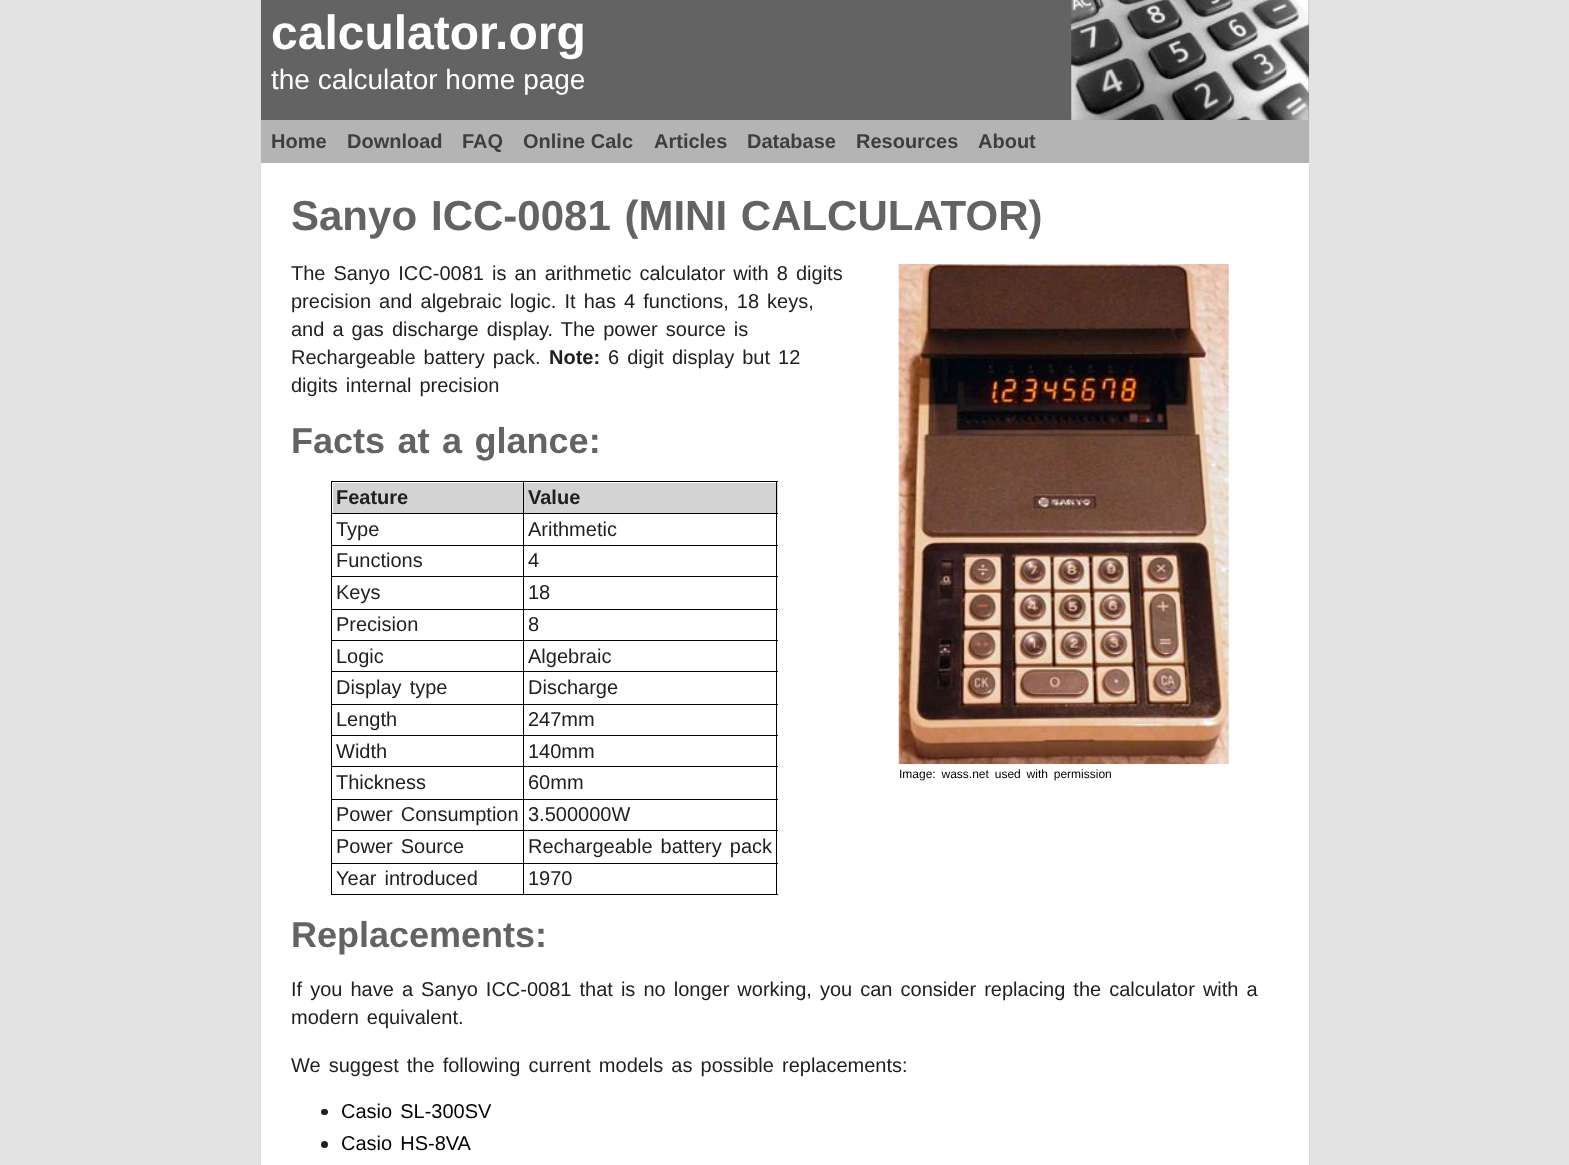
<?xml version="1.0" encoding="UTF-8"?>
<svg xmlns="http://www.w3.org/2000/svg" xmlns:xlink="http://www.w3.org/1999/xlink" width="1569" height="1165">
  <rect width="100%" height="100%" fill="#e3e3e3" />
  <rect x="261" y="163" width="1048" height="1002" fill="#ffffff" />
  <rect x="260.5" y="-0.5" width="1049" height="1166" fill="none" stroke="#dddddd" />
  <rect x="261" width="1048" height="120" fill="#636363" />
  <image x="1071" y="0" width="238" height="120" xlink:href="image1.png" />
  <rect x="261" y="120" width="1048" height="43" fill="#b4b4b4" />
  <rect x="331" y="481" width="447" height="1" fill="#000000" />
  <rect x="524" y="483" width="254" height="30" fill="#d3d3d3" />
  <rect x="776" y="481" width="1" height="414" fill="#000000" />
  <rect x="331" y="894" width="447" height="1" fill="#000000" />
  <rect x="331" y="481" width="1" height="414" fill="#000000" />
  <rect x="333" y="483" width="190" height="30" fill="#d3d3d3" />
  <rect x="523" y="513" width="255" height="1" fill="#000000" />
  <rect x="523" y="545" width="255" height="1" fill="#000000" />
  <rect x="523" y="576" width="255" height="1" fill="#000000" />
  <rect x="523" y="609" width="255" height="1" fill="#000000" />
  <rect x="523" y="640" width="255" height="1" fill="#000000" />
  <rect x="523" y="671" width="255" height="1" fill="#000000" />
  <rect x="523" y="704" width="255" height="1" fill="#000000" />
  <rect x="523" y="735" width="255" height="1" fill="#000000" />
  <rect x="523" y="766" width="255" height="1" fill="#000000" />
  <rect x="523" y="799" width="255" height="1" fill="#000000" />
  <rect x="523" y="830" width="255" height="1" fill="#000000" />
  <rect x="523" y="863" width="255" height="1" fill="#000000" />
  <rect x="523" y="863" width="1" height="32" fill="#000000" />
  <rect x="331" y="863" width="193" height="1" fill="#000000" />
  <rect x="523" y="830" width="1" height="34" fill="#000000" />
  <rect x="331" y="830" width="193" height="1" fill="#000000" />
  <rect x="523" y="799" width="1" height="32" fill="#000000" />
  <rect x="331" y="799" width="193" height="1" fill="#000000" />
  <rect x="523" y="766" width="1" height="34" fill="#000000" />
  <rect x="331" y="766" width="193" height="1" fill="#000000" />
  <rect x="523" y="735" width="1" height="33" fill="#000000" />
  <rect x="331" y="735" width="193" height="1" fill="#000000" />
  <rect x="523" y="704" width="1" height="32" fill="#000000" />
  <rect x="331" y="704" width="193" height="1" fill="#000000" />
  <rect x="523" y="671" width="1" height="34" fill="#000000" />
  <rect x="331" y="671" width="193" height="1" fill="#000000" />
  <rect x="523" y="640" width="1" height="33" fill="#000000" />
  <rect x="331" y="640" width="193" height="1" fill="#000000" />
  <rect x="523" y="609" width="1" height="32" fill="#000000" />
  <rect x="331" y="609" width="193" height="1" fill="#000000" />
  <rect x="523" y="576" width="1" height="34" fill="#000000" />
  <rect x="331" y="576" width="193" height="1" fill="#000000" />
  <rect x="523" y="545" width="1" height="33" fill="#000000" />
  <rect x="331" y="545" width="193" height="1" fill="#000000" />
  <rect x="523" y="513" width="1" height="33" fill="#000000" />
  <rect x="331" y="513" width="193" height="1" fill="#000000" />
  <rect x="523" y="481" width="1" height="33" fill="#000000" />
  <image x="898" y="264" width="331" height="500" xlink:href="image2.png" />
  <rect x="321" y="1109" width="7" height="6" rx="3" fill="#202020" />
  <circle cx="324.5" cy="1144.5" r="3.5" fill="#202020" />
  <text x="271" y="49" style="font-family: Liberation Sans; font-size: 48px; font-weight: bold; fill: #ffffff">calculator.org</text>
  <text x="271" y="89" style="font-family: Liberation Sans; font-size: 28px; fill: #ffffff">the calculator home page</text>
  <text x="271" y="148" style="font-family: Liberation Sans; font-size: 20px; font-weight: bold; fill: #3e3e3e">Home</text>
  <text x="347" y="148" style="font-family: Liberation Sans; font-size: 20px; font-weight: bold; fill: #3e3e3e">Download</text>
  <text x="462" y="148" style="font-family: Liberation Sans; font-size: 20px; font-weight: bold; fill: #3e3e3e">FAQ</text>
  <text x="523" y="148" style="font-family: Liberation Sans; font-size: 20px; font-weight: bold; fill: #3e3e3e">Online Calc</text>
  <text x="654" y="148" style="font-family: Liberation Sans; font-size: 20px; font-weight: bold; fill: #3e3e3e">Articles</text>
  <text x="747" y="148" style="font-family: Liberation Sans; font-size: 20px; font-weight: bold; fill: #3e3e3e">Database</text>
  <text x="856" y="148" style="font-family: Liberation Sans; font-size: 20px; font-weight: bold; fill: #3e3e3e">Resources</text>
  <text x="978" y="148" style="font-family: Liberation Sans; font-size: 20px; font-weight: bold; fill: #3e3e3e">About</text>
  <text x="291" y="230" style="font-family: Liberation Sans; font-size: 42px; font-weight: bold; fill: #636363">Sanyo</text>
  <text x="431" y="230" word-spacing="2" style="font-family: Liberation Sans; font-size: 42px; font-weight: bold; fill: #636363">ICC-0081 (MINI CALCULATOR)</text>
  <text x="291" y="280" word-spacing="2.5" style="font-family: Liberation Sans; font-size: 20px; fill: #202020">The Sanyo ICC-0081 is an arithmetic calculator with 8 digits</text>
  <text x="291" y="308" word-spacing="2.5" style="font-family: Liberation Sans; font-size: 20px; fill: #202020">precision and algebraic logic. It has 4 functions, 18 keys,</text>
  <text x="291" y="336" word-spacing="2.5" style="font-family: Liberation Sans; font-size: 20px; fill: #202020">and a gas discharge display. The power source is</text>
  <text x="291" y="364" word-spacing="2.5" style="font-family: Liberation Sans; font-size: 20px; fill: #202020">Rechargeable battery pack.</text>
  <text x="549" y="364" style="font-family: Liberation Sans; font-size: 20px; font-weight: bold; fill: #202020">Note:</text>
  <text x="608" y="364" word-spacing="2.5" style="font-family: Liberation Sans; font-size: 20px; fill: #202020">6 digit display but 12</text>
  <text x="291" y="392" word-spacing="2.5" style="font-family: Liberation Sans; font-size: 20px; fill: #202020">digits internal precision</text>
  <text x="291" y="453" word-spacing="2.5" style="font-family: Liberation Sans; font-size: 36px; font-weight: bold; fill: #636363">Facts at a glance:</text>
  <text x="336" y="504" style="font-family: Liberation Sans; font-size: 20px; font-weight: bold; fill: #202020">Feature</text>
  <text x="528" y="504" style="font-family: Liberation Sans; font-size: 20px; font-weight: bold; fill: #202020">Value</text>
  <text x="336" y="536" style="font-family: Liberation Sans; font-size: 20px; fill: #202020">Type</text>
  <text x="528" y="536" style="font-family: Liberation Sans; font-size: 20px; fill: #202020">Arithmetic</text>
  <text x="336" y="567" style="font-family: Liberation Sans; font-size: 20px; fill: #202020">Functions</text>
  <text x="528" y="567" style="font-family: Liberation Sans; font-size: 20px; fill: #202020">4</text>
  <text x="336" y="599" style="font-family: Liberation Sans; font-size: 20px; fill: #202020">Keys</text>
  <text x="528" y="599" style="font-family: Liberation Sans; font-size: 20px; fill: #202020">18</text>
  <text x="336" y="631" style="font-family: Liberation Sans; font-size: 20px; fill: #202020">Precision</text>
  <text x="528" y="631" style="font-family: Liberation Sans; font-size: 20px; fill: #202020">8</text>
  <text x="336" y="663" style="font-family: Liberation Sans; font-size: 20px; fill: #202020">Logic</text>
  <text x="528" y="663" style="font-family: Liberation Sans; font-size: 20px; fill: #202020">Algebraic</text>
  <text x="336" y="694" word-spacing="2.5" style="font-family: Liberation Sans; font-size: 20px; fill: #202020">Display type</text>
  <text x="528" y="694" style="font-family: Liberation Sans; font-size: 20px; fill: #202020">Discharge</text>
  <text x="336" y="726" style="font-family: Liberation Sans; font-size: 20px; fill: #202020">Length</text>
  <text x="528" y="726" style="font-family: Liberation Sans; font-size: 20px; fill: #202020">247mm</text>
  <text x="336" y="758" style="font-family: Liberation Sans; font-size: 20px; fill: #202020">Width</text>
  <text x="528" y="758" style="font-family: Liberation Sans; font-size: 20px; fill: #202020">140mm</text>
  <text x="336" y="789" style="font-family: Liberation Sans; font-size: 20px; fill: #202020">Thickness</text>
  <text x="528" y="789" style="font-family: Liberation Sans; font-size: 20px; fill: #202020">60mm</text>
  <text x="336" y="821" word-spacing="2.5" style="font-family: Liberation Sans; font-size: 20px; fill: #202020">Power Consumption</text>
  <text x="528" y="821" style="font-family: Liberation Sans; font-size: 20px; fill: #202020">3.500000W</text>
  <text x="336" y="853" word-spacing="2.5" style="font-family: Liberation Sans; font-size: 20px; fill: #202020">Power Source</text>
  <text x="528" y="853" word-spacing="2.5" style="font-family: Liberation Sans; font-size: 20px; fill: #202020">Rechargeable battery pack</text>
  <text x="336" y="885" word-spacing="2.5" style="font-family: Liberation Sans; font-size: 20px; fill: #202020">Year introduced</text>
  <text x="528" y="885" style="font-family: Liberation Sans; font-size: 20px; fill: #202020">1970</text>
  <text x="899" y="778" word-spacing="2.5" style="font-family: Liberation Sans; font-size: 12px; fill: #000000">Image: wass.net used with permission</text>
  <text x="291" y="947" style="font-family: Liberation Sans; font-size: 36px; font-weight: bold; fill: #636363">Replacements:</text>
  <text x="291" y="996" word-spacing="2.5" style="font-family: Liberation Sans; font-size: 20px; fill: #202020">If you have a Sanyo ICC-0081 that is no longer working, you can consider replacing the calculator with a</text>
  <text x="291" y="1024" word-spacing="2.5" style="font-family: Liberation Sans; font-size: 20px; fill: #202020">modern equivalent.</text>
  <text x="291" y="1072" word-spacing="2.5" style="font-family: Liberation Sans; font-size: 20px; fill: #202020">We suggest the following current models as possible replacements:</text>
  <text x="341" y="1118" word-spacing="2.5" style="font-family: Liberation Sans; font-size: 20px; fill: #000000">Casio SL-300SV</text>
  <text x="341" y="1150" word-spacing="2.5" style="font-family: Liberation Sans; font-size: 20px; fill: #000000">Casio HS-8VA</text>
</svg>
